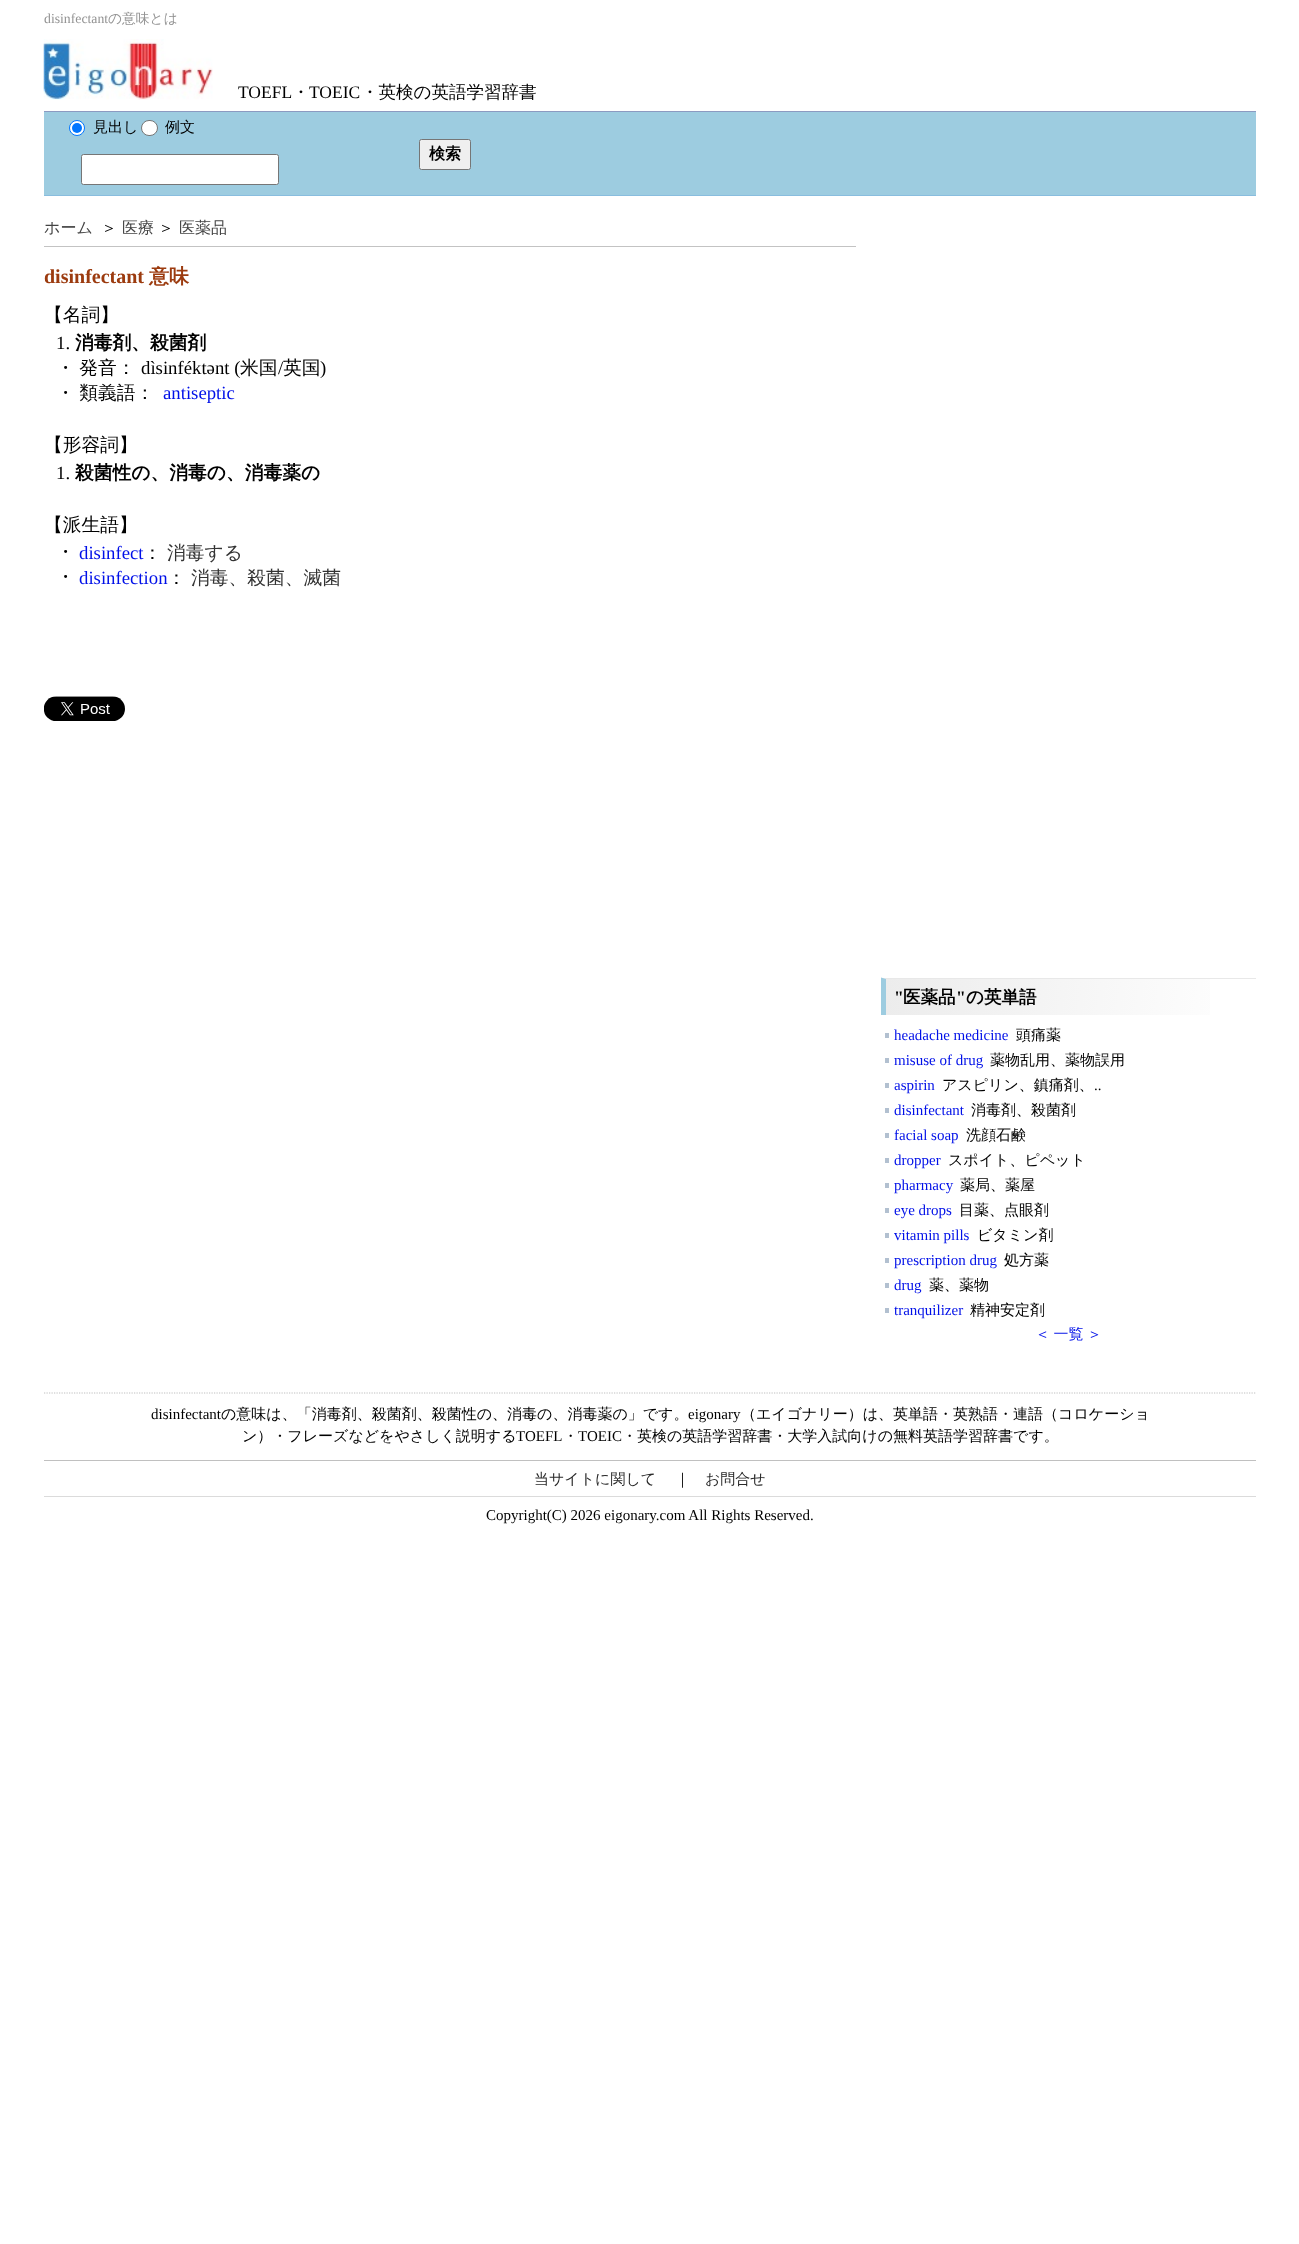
<?xml version="1.0" encoding="UTF-8"?>
<svg xmlns="http://www.w3.org/2000/svg" xmlns:xlink="http://www.w3.org/1999/xlink" width="1299" height="2244">
  <defs>
    <linearGradient id="g1" gradientUnits="userSpaceOnUse" x1="886" y1="979" x2="1256" y2="1015"><stop offset="0" stop-color="#ececec" /><stop offset="1" stop-color="#ffffff" /></linearGradient>
  </defs>
  <rect width="100%" height="100%" fill="#ffffff" />
  <image x="43" y="39" width="170" height="61" xlink:href="image1.png" />
  <rect x="44" y="112" width="1212" height="83" fill="#9dcce0" />
  <rect x="44" y="111" width="1212" height="1" fill="#8c9ac1" />
  <rect x="44" y="195" width="1212" height="1" fill="#89bdde" />
  <circle cx="77" cy="128" r="7.5" fill="#ffffff" stroke="#0075ff" />
  <circle cx="77" cy="128" r="5" fill="#0075ff" />
  <rect x="141.5" y="120.5" width="16" height="15" rx="7.5" fill="#ffffff" stroke="#767676" />
  <rect x="81.5" y="154.5" width="197" height="30" rx="2" fill="#ffffff" stroke="#767676" />
  <rect x="419.5" y="139.5" width="51" height="30" rx="2" fill="#efefef" stroke="#767676" />
  <rect x="44" y="246" width="812" height="1" fill="#c3c3c3" />
  <image x="44" y="696" width="81" height="25" xlink:href="image2.png" />
  <rect x="886" y="979" width="324" height="36" fill="url(#g1)" />
  <path d="M 881 978 h 375 v 1 h -370 z" fill="#e8e8e8" />
  <path d="M 881 1015 v -37.5 l 5 1.5 v 36 z" fill="#9dcce0" />
  <rect x="885" y="1033" width="4" height="5" fill="#b2c0d0" />
  <rect x="885" y="1058" width="4" height="5" fill="#b2c0d0" />
  <rect x="885" y="1083" width="4" height="5" fill="#b2c0d0" />
  <rect x="885" y="1108" width="4" height="5" fill="#b2c0d0" />
  <rect x="885" y="1133" width="4" height="5" fill="#b2c0d0" />
  <rect x="885" y="1158" width="4" height="5" fill="#b2c0d0" />
  <rect x="885" y="1183" width="4" height="5" fill="#b2c0d0" />
  <rect x="885" y="1208" width="4" height="5" fill="#b2c0d0" />
  <rect x="885" y="1233" width="4" height="5" fill="#b2c0d0" />
  <rect x="885" y="1258" width="4" height="5" fill="#b2c0d0" />
  <rect x="885" y="1283" width="4" height="5" fill="#b2c0d0" />
  <rect x="885" y="1308" width="4" height="5" fill="#b2c0d0" />
  <path d="M 44 1393 h 1212" fill="none" stroke="#c0c0c0" stroke-width="1.2" stroke-dasharray="1.25 1.25" />
  <rect x="44" y="1460" width="1212" height="1" fill="#c0c0c0" />
  <rect x="44" y="1496" width="1212" height="1" fill="#dbdbdb" />
  <text x="44" y="23" style="font-family: Liberation Serif; font-size: 13.75px; fill: #939393">disinfectant</text>
  <text x="108" y="23" style="font-family: WenQuanYi Zen Hei; font-size: 13.75px; font-weight: 500; fill: #939393">の意味とは</text>
  <text x="238" y="98" style="font-family: Liberation Serif; font-size: 17.5px; fill: #000000">TOEFL</text>
  <text x="292" y="98" style="font-family: WenQuanYi Zen Hei; font-size: 17.5px; font-weight: 500; fill: #000000">・</text>
  <text x="309" y="98" style="font-family: Liberation Serif; font-size: 17.5px; fill: #000000">TOEIC</text>
  <text x="361" y="98" style="font-family: WenQuanYi Zen Hei; font-size: 17.5px; font-weight: 500; fill: #000000">・英検の英語学習辞書</text>
  <text x="93" y="132" style="font-family: WenQuanYi Zen Hei; font-size: 15px; font-weight: 500; fill: #000000">見出し</text>
  <text x="165" y="132" style="font-family: WenQuanYi Zen Hei; font-size: 15px; font-weight: 500; fill: #000000">例文</text>
  <text x="429" y="159" style="font-family: WenQuanYi Zen Hei; font-size: 16px; font-weight: bold; fill: #000000">検索</text>
  <text x="44" y="233" style="font-family: WenQuanYi Zen Hei; font-size: 16px; font-weight: 500; fill: #444444">ホーム</text>
  <text x="101" y="233" style="font-family: WenQuanYi Zen Hei; font-size: 16px; font-weight: 500; fill: #000000">＞</text>
  <text x="122" y="233" style="font-family: WenQuanYi Zen Hei; font-size: 16px; font-weight: 500; fill: #444444">医療</text>
  <text x="158" y="233" style="font-family: WenQuanYi Zen Hei; font-size: 16px; font-weight: 500; fill: #000000">＞</text>
  <text x="179" y="233" style="font-family: WenQuanYi Zen Hei; font-size: 16px; font-weight: 500; fill: #444444">医薬品</text>
  <text x="44" y="283" style="font-family: Liberation Serif; font-size: 20px; font-weight: bold; fill: #9c3b0f">disinfectant</text>
  <text x="149" y="283" style="font-family: WenQuanYi Zen Hei; font-size: 20px; font-weight: bold; fill: #9c3b0f">意味</text>
  <text x="44" y="321" style="font-family: WenQuanYi Zen Hei; font-size: 18.75px; font-weight: 500; fill: #000000">【名詞】</text>
  <text x="56" y="349" style="font-family: Liberation Serif; font-size: 18.75px; fill: #000000">1.</text>
  <text x="75" y="349" style="font-family: WenQuanYi Zen Hei; font-size: 18.75px; font-weight: bold; fill: #000000">消毒剤、殺菌剤</text>
  <text x="56" y="374" word-spacing="-1" style="font-family: WenQuanYi Zen Hei; font-size: 18.75px; font-weight: 500; fill: #000000">・ 発音：</text>
  <text x="141" y="374" style="font-family: Liberation Serif; font-size: 18.75px; fill: #000000">dìsinféktənt (</text>
  <text x="240" y="374" style="font-family: WenQuanYi Zen Hei; font-size: 18.75px; font-weight: 500; fill: #000000">米国</text>
  <text x="278" y="374" style="font-family: Liberation Serif; font-size: 18.75px; fill: #000000">/</text>
  <text x="283" y="374" style="font-family: WenQuanYi Zen Hei; font-size: 18.75px; font-weight: 500; fill: #000000">英国</text>
  <text x="320" y="374" style="font-family: Liberation Serif; font-size: 18.75px; fill: #000000">)</text>
  <text x="56" y="399" word-spacing="-1" style="font-family: WenQuanYi Zen Hei; font-size: 18.75px; font-weight: 500; fill: #000000">・ 類義語：</text>
  <text x="163" y="399" style="font-family: Liberation Serif; font-size: 18.75px; fill: #0010e8">antiseptic</text>
  <text x="44" y="451" style="font-family: WenQuanYi Zen Hei; font-size: 18.75px; font-weight: 500; fill: #000000">【形容詞】</text>
  <text x="56" y="479" style="font-family: Liberation Serif; font-size: 18.75px; fill: #000000">1.</text>
  <text x="75" y="479" style="font-family: WenQuanYi Zen Hei; font-size: 18.75px; font-weight: bold; fill: #000000">殺菌性の、消毒の、消毒薬の</text>
  <text x="44" y="531" style="font-family: WenQuanYi Zen Hei; font-size: 18.75px; font-weight: 500; fill: #000000">【派生語】</text>
  <text x="56" y="558" style="font-family: WenQuanYi Zen Hei; font-size: 18.75px; font-weight: 500; fill: #000000">・</text>
  <text x="79" y="559" style="font-family: Liberation Serif; font-size: 18.75px; fill: #0010e8">disinfect</text>
  <text x="143" y="559" style="font-family: WenQuanYi Zen Hei; font-size: 18.75px; font-weight: 500; fill: #000000">：</text>
  <text x="167" y="559" style="font-family: WenQuanYi Zen Hei; font-size: 18.75px; font-weight: 500; fill: #333333">消毒する</text>
  <text x="56" y="583" style="font-family: WenQuanYi Zen Hei; font-size: 18.75px; font-weight: 500; fill: #000000">・</text>
  <text x="79" y="584" style="font-family: Liberation Serif; font-size: 18.75px; fill: #0010e8">disinfection</text>
  <text x="167" y="584" style="font-family: WenQuanYi Zen Hei; font-size: 18.75px; font-weight: 500; fill: #000000">：</text>
  <text x="191" y="584" style="font-family: WenQuanYi Zen Hei; font-size: 18.75px; font-weight: 500; fill: #333333">消毒、殺菌、滅菌</text>
  <text x="894" y="1003" style="font-family: Liberation Serif; font-size: 17.5px; font-weight: bold; fill: #000000">"</text>
  <text x="903" y="1003" style="font-family: WenQuanYi Zen Hei; font-size: 17.5px; font-weight: bold; fill: #000000">医薬品</text>
  <text x="956" y="1003" style="font-family: Liberation Serif; font-size: 17.5px; font-weight: bold; fill: #000000">"</text>
  <text x="966" y="1003" style="font-family: WenQuanYi Zen Hei; font-size: 17.5px; font-weight: bold; fill: #000000">の英単語</text>
  <text x="894" y="1040" style="font-family: Liberation Serif; font-size: 15px; fill: #0010e8">headache medicine</text>
  <text x="1016" y="1040" style="font-family: WenQuanYi Zen Hei; font-size: 15px; font-weight: 500; fill: #000000">頭痛薬</text>
  <text x="894" y="1065" style="font-family: Liberation Serif; font-size: 15px; fill: #0010e8">misuse of drug</text>
  <text x="990" y="1065" style="font-family: WenQuanYi Zen Hei; font-size: 15px; font-weight: 500; fill: #000000">薬物乱用、薬物誤用</text>
  <text x="894" y="1090" style="font-family: Liberation Serif; font-size: 15px; fill: #0010e8">aspirin</text>
  <text x="942" y="1090" style="font-family: WenQuanYi Zen Hei; font-size: 15px; font-weight: 500; fill: #000000">アスピリン、鎮痛剤、</text>
  <text x="1094" y="1090" style="font-family: Liberation Serif; font-size: 15px; fill: #000000">..</text>
  <text x="894" y="1115" style="font-family: Liberation Serif; font-size: 15px; fill: #0010e8">disinfectant</text>
  <text x="971" y="1115" style="font-family: WenQuanYi Zen Hei; font-size: 15px; font-weight: 500; fill: #000000">消毒剤、殺菌剤</text>
  <text x="894" y="1140" style="font-family: Liberation Serif; font-size: 15px; fill: #0010e8">facial soap</text>
  <text x="966" y="1140" style="font-family: WenQuanYi Zen Hei; font-size: 15px; font-weight: 500; fill: #000000">洗顔石鹸</text>
  <text x="894" y="1165" style="font-family: Liberation Serif; font-size: 15px; fill: #0010e8">dropper</text>
  <text x="948" y="1165" style="font-family: WenQuanYi Zen Hei; font-size: 15px; font-weight: 500; fill: #000000">スポイト、ピペット</text>
  <text x="894" y="1190" style="font-family: Liberation Serif; font-size: 15px; fill: #0010e8">pharmacy</text>
  <text x="960" y="1190" style="font-family: WenQuanYi Zen Hei; font-size: 15px; font-weight: 500; fill: #000000">薬局、薬屋</text>
  <text x="894" y="1215" style="font-family: Liberation Serif; font-size: 15px; fill: #0010e8">eye drops</text>
  <text x="959" y="1215" style="font-family: WenQuanYi Zen Hei; font-size: 15px; font-weight: 500; fill: #000000">目薬、点眼剤</text>
  <text x="894" y="1240" style="font-family: Liberation Serif; font-size: 15px; fill: #0010e8">vitamin pills</text>
  <text x="977" y="1240" style="font-family: WenQuanYi Zen Hei; font-size: 15px; font-weight: 500; fill: #000000">ビタミン剤</text>
  <text x="894" y="1265" style="font-family: Liberation Serif; font-size: 15px; fill: #0010e8">prescription drug</text>
  <text x="1004" y="1265" style="font-family: WenQuanYi Zen Hei; font-size: 15px; font-weight: 500; fill: #000000">処方薬</text>
  <text x="894" y="1290" style="font-family: Liberation Serif; font-size: 15px; fill: #0010e8">drug</text>
  <text x="929" y="1290" style="font-family: WenQuanYi Zen Hei; font-size: 15px; font-weight: 500; fill: #000000">薬、薬物</text>
  <text x="894" y="1315" style="font-family: Liberation Serif; font-size: 15px; fill: #0010e8">tranquilizer</text>
  <text x="970" y="1315" style="font-family: WenQuanYi Zen Hei; font-size: 15px; font-weight: 500; fill: #000000">精神安定剤</text>
  <text x="1035" y="1339" word-spacing="-1" style="font-family: WenQuanYi Zen Hei; font-size: 15px; font-weight: 500; fill: #0010e8">＜ 一覧 ＞</text>
  <text x="151" y="1419" style="font-family: Liberation Serif; font-size: 15px; fill: #000000">disinfectant</text>
  <text x="221" y="1419" style="font-family: WenQuanYi Zen Hei; font-size: 15px; font-weight: 500; fill: #000000">の意味は、「消毒剤、殺菌剤、殺菌性の、消毒の、消毒薬の」です。</text>
  <text x="688" y="1419" style="font-family: Liberation Serif; font-size: 15px; fill: #000000">eigonary</text>
  <text x="741" y="1419" style="font-family: WenQuanYi Zen Hei; font-size: 15px; font-weight: 500; fill: #000000">（エイゴナリー）は、英単語・英熟語・連語（コロケーショ</text>
  <text x="242" y="1441" style="font-family: WenQuanYi Zen Hei; font-size: 15px; font-weight: 500; fill: #000000">ン）・フレーズなどをやさしく説明する</text>
  <text x="516" y="1441" style="font-family: Liberation Serif; font-size: 15px; fill: #000000">TOEFL</text>
  <text x="563" y="1441" style="font-family: WenQuanYi Zen Hei; font-size: 15px; font-weight: 500; fill: #000000">・</text>
  <text x="578" y="1441" style="font-family: Liberation Serif; font-size: 15px; fill: #000000">TOEIC</text>
  <text x="622" y="1441" style="font-family: WenQuanYi Zen Hei; font-size: 15px; font-weight: 500; fill: #000000">・英検の英語学習辞書・大学入試向けの無料英語学習辞書です。</text>
  <text x="534" y="1484" style="font-family: WenQuanYi Zen Hei; font-size: 15px; font-weight: 500; fill: #292929">当サイトに関して</text>
  <text x="675" y="1484" style="font-family: WenQuanYi Zen Hei; font-size: 15px; font-weight: 500; fill: #000000">｜</text>
  <text x="705" y="1484" style="font-family: WenQuanYi Zen Hei; font-size: 15px; font-weight: 500; fill: #292929">お問合せ</text>
  <text x="486" y="1520" style="font-family: Liberation Serif; font-size: 15px; fill: #000000">Copyright(C) 2026 eigonary.com All Rights Reserved.</text>
</svg>
